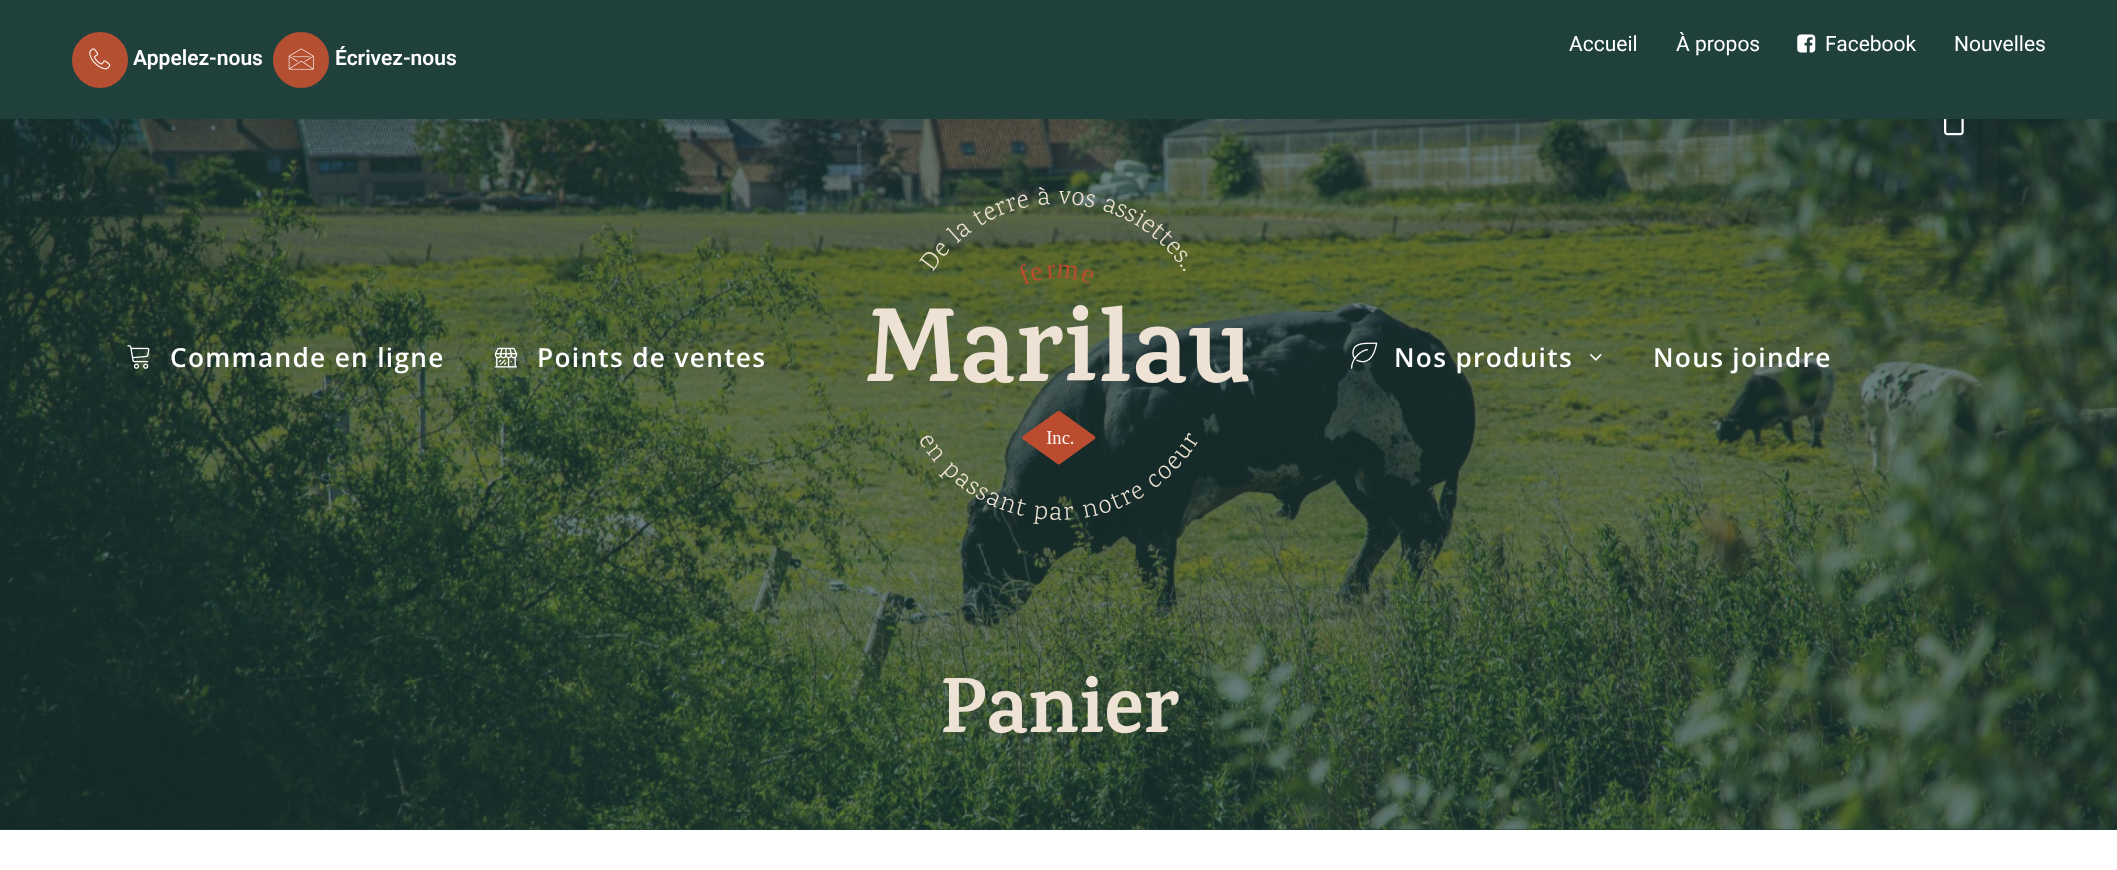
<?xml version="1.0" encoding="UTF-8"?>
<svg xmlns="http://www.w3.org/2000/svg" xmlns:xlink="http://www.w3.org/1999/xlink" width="2117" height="870">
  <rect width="100%" height="100%" fill="#20403c" />
  <circle cx="100" cy="60" r="27" fill="#b44f32" stroke="#b44f32" stroke-width="2" />
  <image x="89" y="48" width="22" height="22" xlink:href="image1.png" />
  <circle cx="301" cy="60" r="27" fill="#b44f32" stroke="#b44f32" stroke-width="2" />
  <image x="288" y="48" width="26" height="22" xlink:href="image2.png" />
  <image x="1797" y="34" width="19" height="19" xlink:href="image3.png" />
  <image x="0" y="119" width="2117" height="711" xlink:href="image10.png" />
  <image x="1944" y="119" width="20" height="17" xlink:href="image4.png" />
  <image x="127" y="345" width="23" height="24" xlink:href="image5.png" />
  <image x="494" y="347" width="24" height="21" xlink:href="image6.png" />
  <image x="867" y="187" width="382" height="337" xlink:href="image7.png" />
  <image x="1351" y="342" width="27" height="27" xlink:href="image8.png" />
  <image x="1589" y="353" width="13" height="8" xlink:href="image9.png" />
  <rect y="830" width="2117" height="40" fill="#ffffff" />
  <text x="133" y="65" style="font-family: Roboto; font-size: 21px; font-weight: 600; fill: #ffffff">Appelez-nous</text>
  <text x="335" y="65" style="font-family: Roboto; font-size: 21px; font-weight: 600; fill: #ffffff">Écrivez-nous</text>
  <text x="1569" y="51" style="font-family: Roboto; font-size: 21px; fill: #ffffff">Accueil</text>
  <text x="1676" y="51" style="font-family: Roboto; font-size: 21px; fill: #ffffff">À propos</text>
  <text x="1825" y="51" style="font-family: Roboto; font-size: 21px; fill: #ffffff">Facebook</text>
  <text x="1954" y="51" style="font-family: Roboto; font-size: 21px; fill: #ffffff">Nouvelles</text>
  <text x="170" y="367" style="font-family: Open Sans; font-size: 26.25px; font-weight: 600; letter-spacing: 1.3px; fill: #ffffff">Commande en ligne</text>
  <text x="537" y="367" style="font-family: Open Sans; font-size: 26.25px; font-weight: 600; letter-spacing: 1.3px; fill: #ffffff">Points de ventes</text>
  <text x="1394" y="367" style="font-family: Open Sans; font-size: 26.25px; font-weight: 600; letter-spacing: 1.3px; fill: #ffffff">Nos produits</text>
  <text x="1653" y="367" style="font-family: Open Sans; font-size: 26.25px; font-weight: 600; letter-spacing: 1.3px; fill: #ffffff">Nous joindre</text>
  <text x="940" y="732" style="font-family: Karma; font-size: 79px; font-weight: bold; fill: #ede2d3">Panier</text>
</svg>
